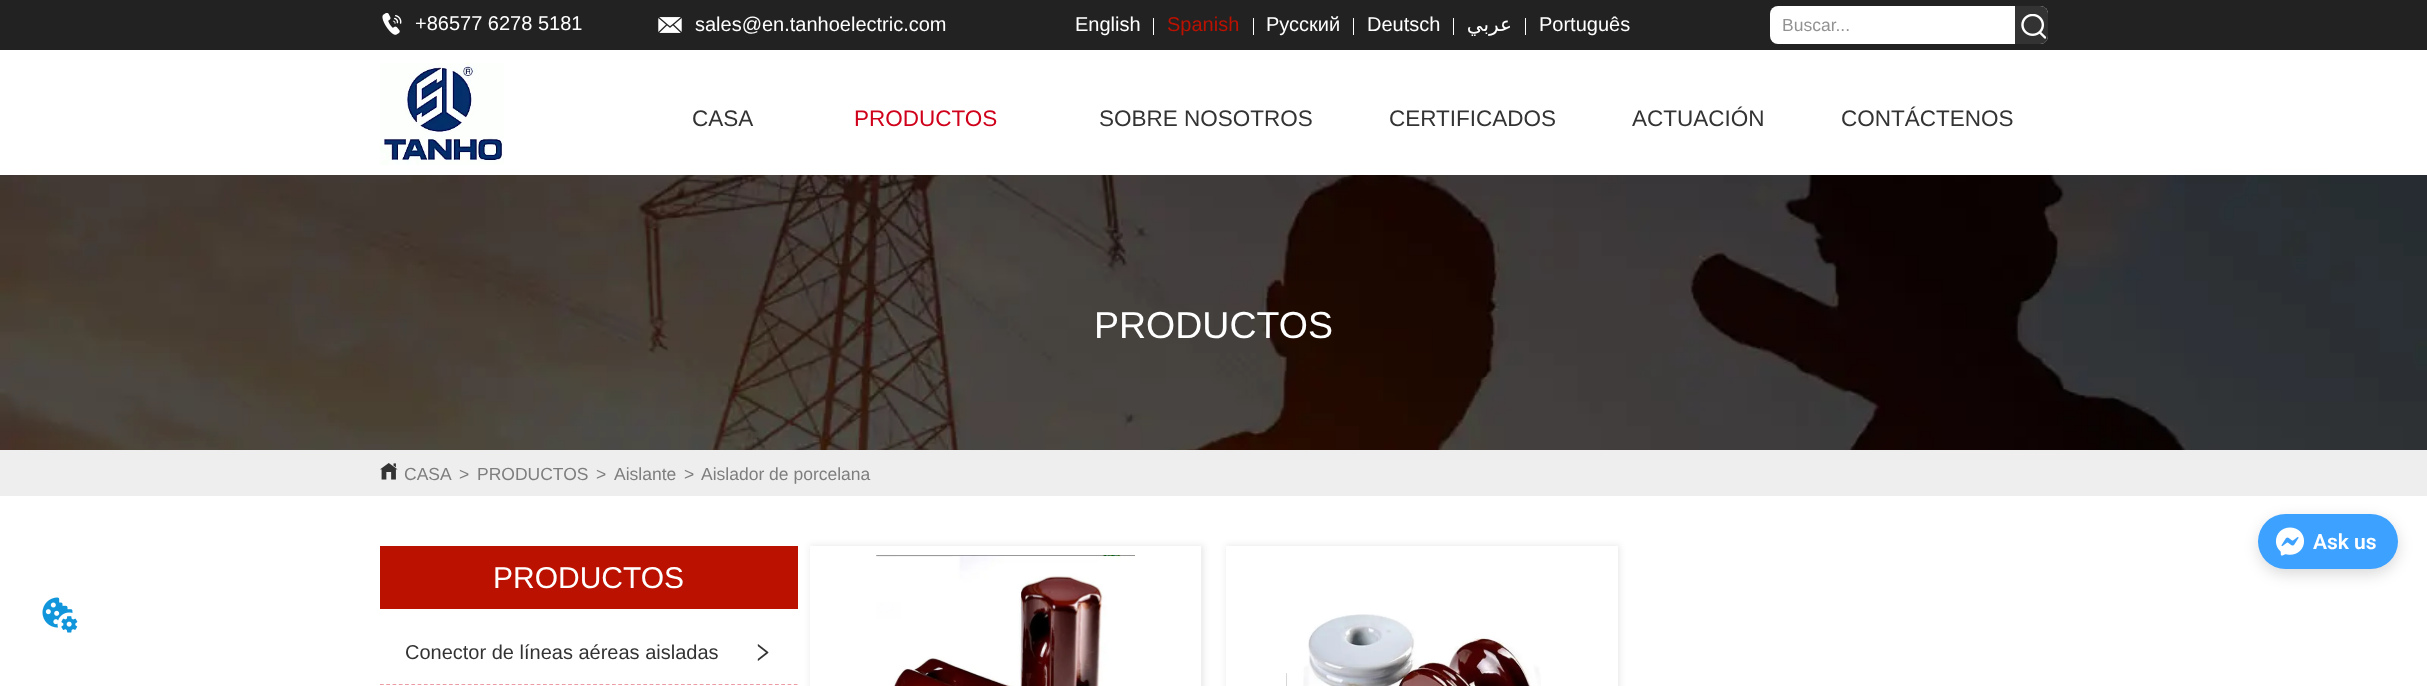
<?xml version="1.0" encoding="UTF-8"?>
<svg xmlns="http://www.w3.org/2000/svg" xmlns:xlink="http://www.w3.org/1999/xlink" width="2427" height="686">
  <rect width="100%" height="100%" fill="#ffffff" />
  <rect width="2427" height="50" fill="#222222" />
  <image x="382" y="13" width="20" height="22" xlink:href="image1.png" />
  <image x="658" y="17" width="24" height="16" xlink:href="image2.png" />
  <rect x="1153" y="18" width="1" height="17" fill="#ffffff" />
  <rect x="1253" y="18" width="1" height="17" fill="#ffffff" />
  <rect x="1353" y="18" width="1" height="17" fill="#ffffff" />
  <rect x="1453" y="18" width="1" height="17" fill="#ffffff" />
  <rect x="1525" y="18" width="1" height="17" fill="#ffffff" />
  <rect x="1770" y="6" width="278" height="38" rx="8" fill="#ffffff" />
  <path d="M 2015 6 h 25 c 4.5 0 8 3.5 8 8 v 22 c 0 4.5 -3.5 8 -8 8 h -25 z" fill="#333333" />
  <image x="2021" y="14" width="25" height="25" xlink:href="image3.png" />
  <image x="380" y="62" width="124" height="103" xlink:href="image4.png" />
  <image x="0" y="175" width="2427" height="275" xlink:href="image5.png" />
  <rect y="450" width="2427" height="46" fill="#eeeeee" />
  <image x="380" y="463" width="18" height="17" xlink:href="image6.png" />
  <rect x="380" y="546" width="418" height="63" fill="#bb1100" />
  <image x="757" y="644" width="12" height="17" xlink:href="image7.png" />
  <path d="M 380 684.5 h 417.5" fill="none" stroke="#ec9aa4" stroke-width="1.2" stroke-dasharray="3.75 2.52" />
  <rect x="810" y="545" width="394" height="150" fill="#333333" fill-opacity="0.1" filter="blur(3px)" />
  <rect x="810" y="546" width="391" height="140" fill="#ffffff" />
  <image x="876" y="555" width="259" height="131" xlink:href="image8.png" />
  <rect x="1226" y="545" width="394" height="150" fill="#333333" fill-opacity="0.1" filter="blur(3px)" />
  <rect x="1226" y="546" width="392" height="140" fill="#ffffff" />
  <image x="1286" y="614" width="255" height="72" xlink:href="image9.png" />
  <rect x="2259" y="519" width="139" height="55" rx="27.5" fill="#000000" fill-opacity="0.15" filter="blur(7.5px)" />
  <rect x="2258" y="514" width="140" height="55" rx="27.5" fill="#3da1ff" />
  <image x="2275" y="527" width="30" height="29" xlink:href="image10.png" />
  <image x="42" y="597" width="36" height="36" xlink:href="image11.png" />
  <text x="415" y="30" style="font-family: Liberation Sans; font-size: 20px; fill: #ffffff">+86577 6278 5181</text>
  <text x="695" y="31" style="font-family: Liberation Sans; font-size: 20px; fill: #ffffff">sales@en.tanhoelectric.com</text>
  <text x="1075" y="31" style="font-family: Liberation Sans; font-size: 20px; fill: #ffffff">English</text>
  <text x="1167" y="31" style="font-family: Liberation Sans; font-size: 20px; fill: #bb1100">Spanish</text>
  <text x="1266" y="31" style="font-family: Liberation Sans; font-size: 20px; fill: #ffffff">Русский</text>
  <text x="1367" y="31" style="font-family: Liberation Sans; font-size: 20px; fill: #ffffff">Deutsch</text>
  <text x="1512" y="31" style="font-family: DejaVu Sans; font-size: 20px; direction: rtl; fill: #ffffff">عربي</text>
  <text x="1539" y="31" style="font-family: Liberation Sans; font-size: 20px; fill: #ffffff">Português</text>
  <text x="1782" y="31" style="font-family: Liberation Sans; font-size: 17.5px; fill: #929292">Buscar...</text>
  <text x="692" y="126" style="font-family: Liberation Sans; font-size: 22.5px; fill: #333333">CASA</text>
  <text x="854" y="126" style="font-family: Liberation Sans; font-size: 22.5px; fill: #d0021b">PRODUCTOS</text>
  <text x="1099" y="126" style="font-family: Liberation Sans; font-size: 22.5px; fill: #333333">SOBRE NOSOTROS</text>
  <text x="1389" y="126" style="font-family: Liberation Sans; font-size: 22.5px; fill: #333333">CERTIFICADOS</text>
  <text x="1632" y="126" style="font-family: Liberation Sans; font-size: 22.5px; fill: #333333">ACTUACIÓN</text>
  <text x="1841" y="126" style="font-family: Liberation Sans; font-size: 22.5px; fill: #333333">CONTÁCTENOS</text>
  <text x="1094" y="338" style="font-family: Liberation Sans; font-size: 37.5px; fill: #ffffff">PRODUCTOS</text>
  <text x="404" y="480" style="font-family: Liberation Sans; font-size: 17.5px; fill: #7e7e7e">CASA</text>
  <text x="459" y="480" style="font-family: Liberation Sans; font-size: 17.5px; fill: #7e7e7e">&gt;</text>
  <text x="477" y="480" style="font-family: Liberation Sans; font-size: 17.5px; fill: #7e7e7e">PRODUCTOS</text>
  <text x="596" y="480" style="font-family: Liberation Sans; font-size: 17.5px; fill: #7e7e7e">&gt;</text>
  <text x="614" y="480" style="font-family: Liberation Sans; font-size: 17.5px; fill: #7e7e7e">Aislante</text>
  <text x="684" y="480" style="font-family: Liberation Sans; font-size: 17.5px; fill: #7e7e7e">&gt;</text>
  <text x="701" y="480" style="font-family: Liberation Sans; font-size: 17.5px; fill: #7e7e7e">Aislador de porcelana</text>
  <text x="493" y="588" style="font-family: Liberation Sans; font-size: 30px; fill: #ffffff">PRODUCTOS</text>
  <text x="405" y="659" style="font-family: Liberation Sans; font-size: 20px; fill: #333333">Conector de líneas aéreas aisladas</text>
  <text x="2313" y="549" style="font-family: Roboto; font-size: 21px; font-weight: 600; fill: #ffffff">Ask us</text>
</svg>
